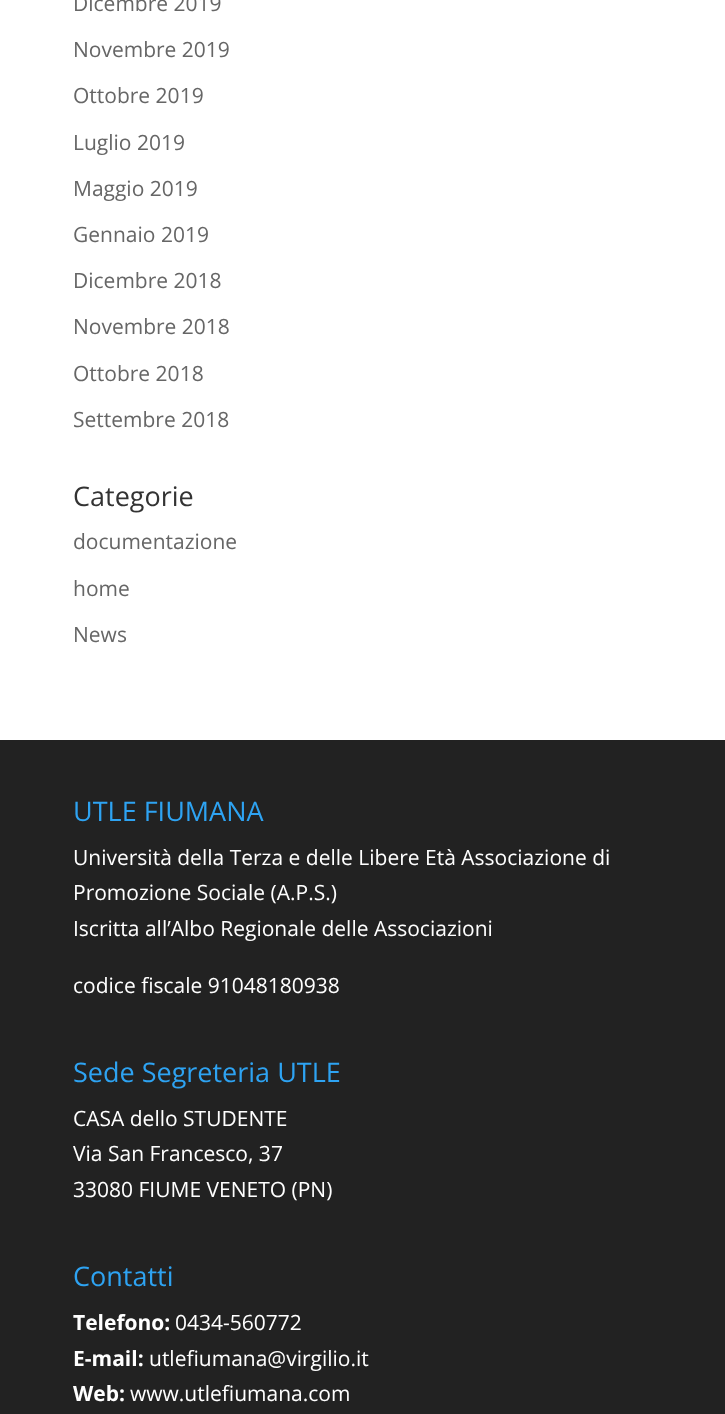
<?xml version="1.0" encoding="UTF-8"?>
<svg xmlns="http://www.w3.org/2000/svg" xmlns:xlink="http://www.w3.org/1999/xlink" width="725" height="1414">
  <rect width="100%" height="100%" fill="#ffffff" />
  <rect y="740" width="725" height="674" fill="#222222" />
  <text x="73" y="11" style="font-family: Open Sans; font-size: 21px; fill: #666666">Dicembre 2019</text>
  <text x="73" y="57" style="font-family: Open Sans; font-size: 21px; fill: #666666">Novembre 2019</text>
  <text x="73" y="103" style="font-family: Open Sans; font-size: 21px; fill: #666666">Ottobre 2019</text>
  <text x="73" y="150" style="font-family: Open Sans; font-size: 21px; fill: #666666">Luglio 2019</text>
  <text x="73" y="196" style="font-family: Open Sans; font-size: 21px; fill: #666666">Maggio 2019</text>
  <text x="73" y="242" style="font-family: Open Sans; font-size: 21px; fill: #666666">Gennaio 2019</text>
  <text x="73" y="288" style="font-family: Open Sans; font-size: 21px; fill: #666666">Dicembre 2018</text>
  <text x="73" y="334" style="font-family: Open Sans; font-size: 21px; fill: #666666">Novembre 2018</text>
  <text x="73" y="381" style="font-family: Open Sans; font-size: 21px; fill: #666666">Ottobre 2018</text>
  <text x="73" y="427" style="font-family: Open Sans; font-size: 21px; fill: #666666">Settembre 2018</text>
  <text x="73" y="506" style="font-family: Open Sans; font-size: 27px; fill: #333333">Categorie</text>
  <text x="73" y="549" style="font-family: Open Sans; font-size: 21px; fill: #666666">documentazione</text>
  <text x="73" y="596" style="font-family: Open Sans; font-size: 21px; fill: #666666">home</text>
  <text x="73" y="642" style="font-family: Open Sans; font-size: 21px; fill: #666666">News</text>
  <text x="73" y="821" style="font-family: Open Sans; font-size: 27px; fill: #2ea3f2">UTLE FIUMANA</text>
  <text x="73" y="865" style="font-family: Open Sans; font-size: 21px; fill: #ffffff">Università della Terza e delle Libere Età Associazione di</text>
  <text x="73" y="900" style="font-family: Open Sans; font-size: 21px; fill: #ffffff">Promozione Sociale (A.P.S.)</text>
  <text x="73" y="936" style="font-family: Open Sans; font-size: 21px; fill: #ffffff">Iscritta all’Albo Regionale delle Associazioni</text>
  <text x="73" y="993" style="font-family: Open Sans; font-size: 21px; fill: #ffffff">codice fiscale 91048180938</text>
  <text x="73" y="1082" style="font-family: Open Sans; font-size: 27px; fill: #2ea3f2">Sede Segreteria UTLE</text>
  <text x="73" y="1126" style="font-family: Open Sans; font-size: 21px; fill: #ffffff">CASA dello STUDENTE</text>
  <text x="73" y="1161" style="font-family: Open Sans; font-size: 21px; fill: #ffffff">Via San Francesco, 37</text>
  <text x="73" y="1197" style="font-family: Open Sans; font-size: 21px; fill: #ffffff">33080 FIUME VENETO (PN)</text>
  <text x="73" y="1286" style="font-family: Open Sans; font-size: 27px; fill: #2ea3f2">Contatti</text>
  <text x="73" y="1330" style="font-family: Open Sans; font-size: 21px; font-weight: bold; fill: #ffffff">Telefono:</text>
  <text x="175" y="1330" style="font-family: Open Sans; font-size: 21px; fill: #ffffff">0434-560772</text>
  <text x="73" y="1366" style="font-family: Open Sans; font-size: 21px; font-weight: bold; fill: #ffffff">E-mail:</text>
  <text x="149" y="1366" style="font-family: Open Sans; font-size: 21px; fill: #ffffff">utlefiumana@virgilio.it</text>
  <text x="73" y="1401" style="font-family: Open Sans; font-size: 21px; font-weight: bold; fill: #ffffff">Web:</text>
  <text x="130" y="1401" style="font-family: Open Sans; font-size: 21px; fill: #ffffff">www.utlefiumana.com</text>
</svg>
